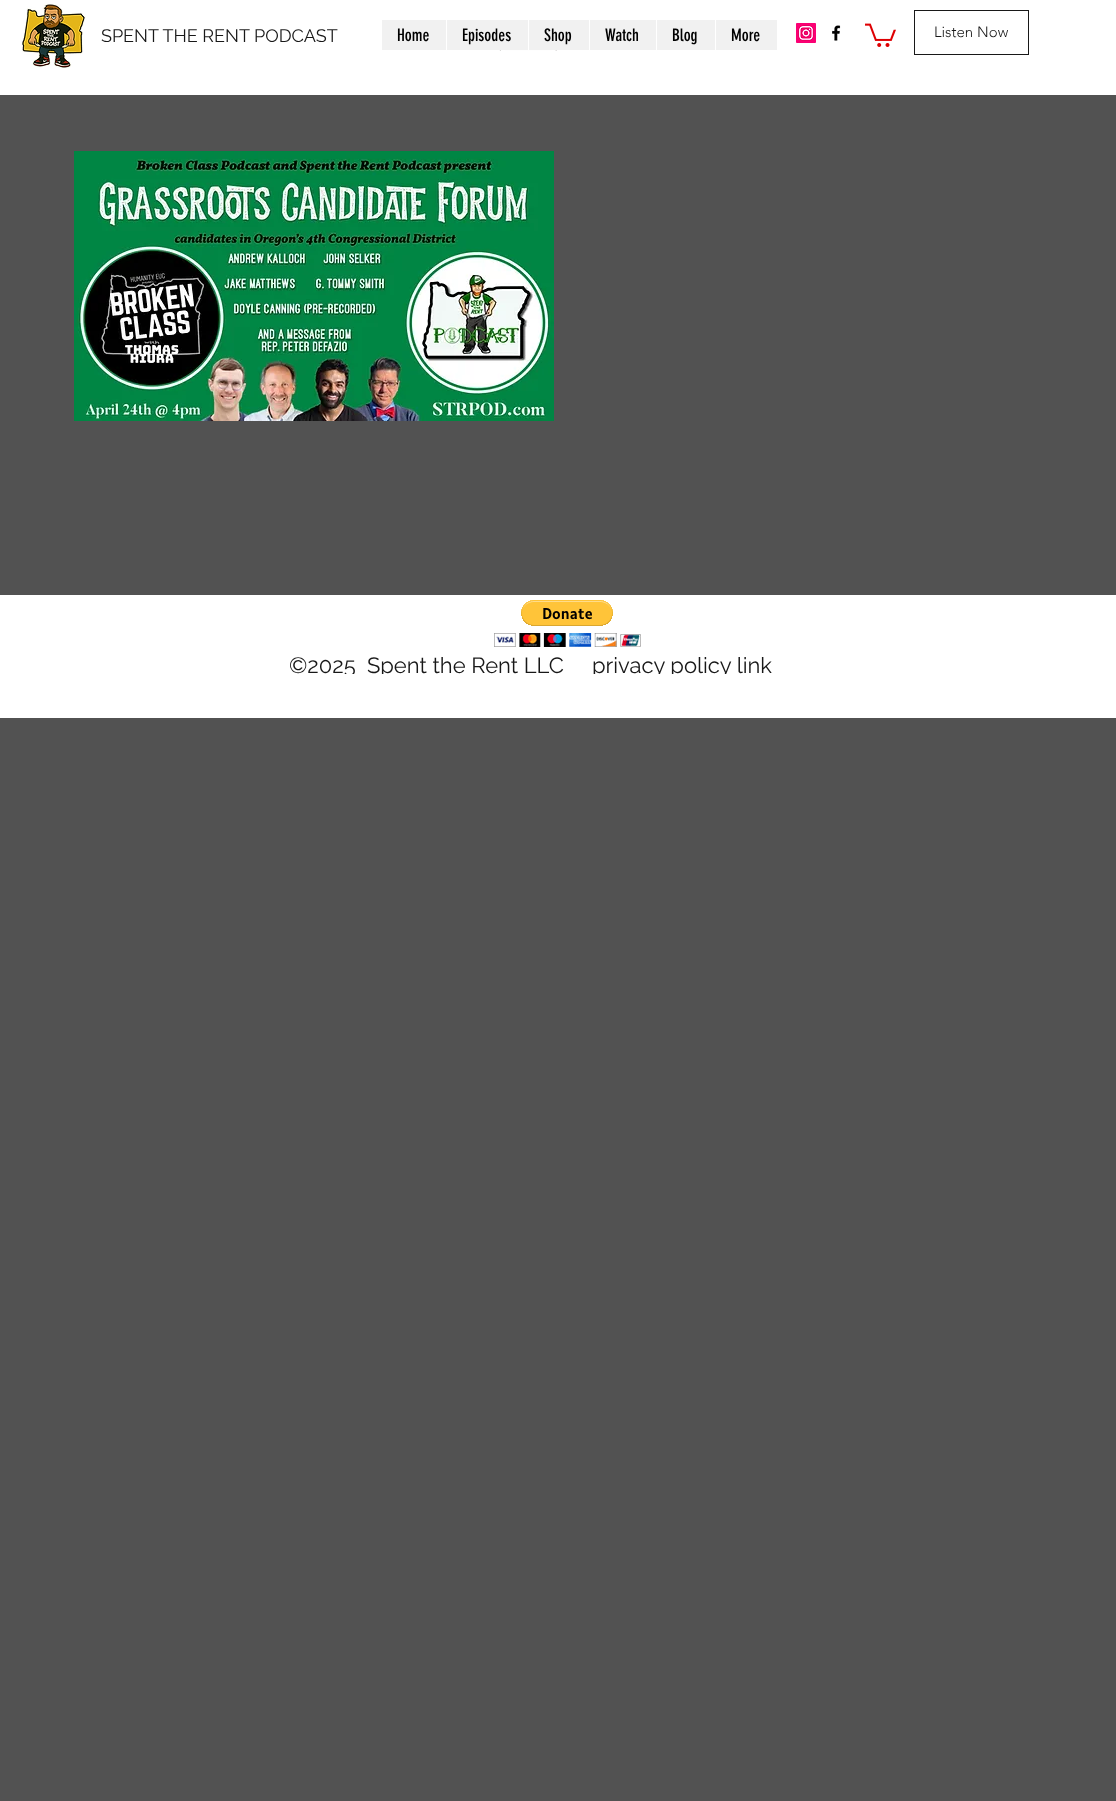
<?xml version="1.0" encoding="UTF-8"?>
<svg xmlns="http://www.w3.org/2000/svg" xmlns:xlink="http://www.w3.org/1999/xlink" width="1116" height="1801">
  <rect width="100%" height="100%" fill="#525252" />
  <rect width="1116" height="95" fill="#ffffff" />
  <image x="21" y="4" width="65" height="64" xlink:href="image1.png" />
  <image x="498" y="50" width="61" height="1" xlink:href="image2.png" />
  <rect x="382" y="20" width="395" height="30" fill="#f1f1f1" />
  <rect x="446" y="20" width="1" height="30" fill="#ffffff" />
  <rect x="528" y="20" width="1" height="30" fill="#ffffff" />
  <rect x="589" y="20" width="1" height="30" fill="#ffffff" />
  <rect x="656" y="20" width="1" height="30" fill="#ffffff" />
  <rect x="715" y="20" width="1" height="30" fill="#ffffff" />
  <image x="796" y="23" width="20" height="20" xlink:href="image3.png" />
  <image x="832" y="25" width="9" height="16" xlink:href="image4.png" />
  <image x="865" y="23" width="31" height="24" xlink:href="image5.png" />
  <rect x="914.5" y="10.5" width="114" height="44" fill="none" stroke="#181818" />
  <image x="74" y="151" width="480" height="270" xlink:href="image6.png" />
  <rect y="595" width="1116" height="123" fill="#ffffff" />
  <image x="494" y="600" width="147" height="47" xlink:href="image7.png" />
  <text x="101" y="42" style="font-family: Raleway; font-size: 18px; fill: #181818">SPENT THE RENT PODCAST</text>
  <text x="397" y="41" style="font-family: 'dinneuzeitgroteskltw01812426'; font-size: 17px; fill: #000000">Home</text>
  <text x="462" y="41" style="font-family: 'dinneuzeitgroteskltw01812426'; font-size: 17px; fill: #000000">Episodes</text>
  <text x="544" y="41" style="font-family: 'dinneuzeitgroteskltw01812426'; font-size: 17px; fill: #000000">Shop</text>
  <text x="605" y="41" style="font-family: 'dinneuzeitgroteskltw01812426'; font-size: 17px; fill: #000000">Watch</text>
  <text x="672" y="41" style="font-family: 'dinneuzeitgroteskltw01812426'; font-size: 17px; fill: #000000">Blog</text>
  <text x="731" y="41" style="font-family: 'dinneuzeitgroteskltw01812426'; font-size: 17px; fill: #000000">More</text>
  <text x="934" y="37" style="font-family: 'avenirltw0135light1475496'; font-size: 15px; font-weight: 300; fill: #181818">Listen Now</text>
  <text x="289" y="673" style="font-family: Raleway; font-size: 22px; fill: #181818" xml:space="preserve">©2025  Spent the Rent LLC</text>
  <text x="592" y="673" style="font-family: Raleway; font-size: 22px; fill: #181818">privacy policy link</text>
  <rect x="345" y="674" width="382" height="4" fill="#ffffff" />
</svg>
